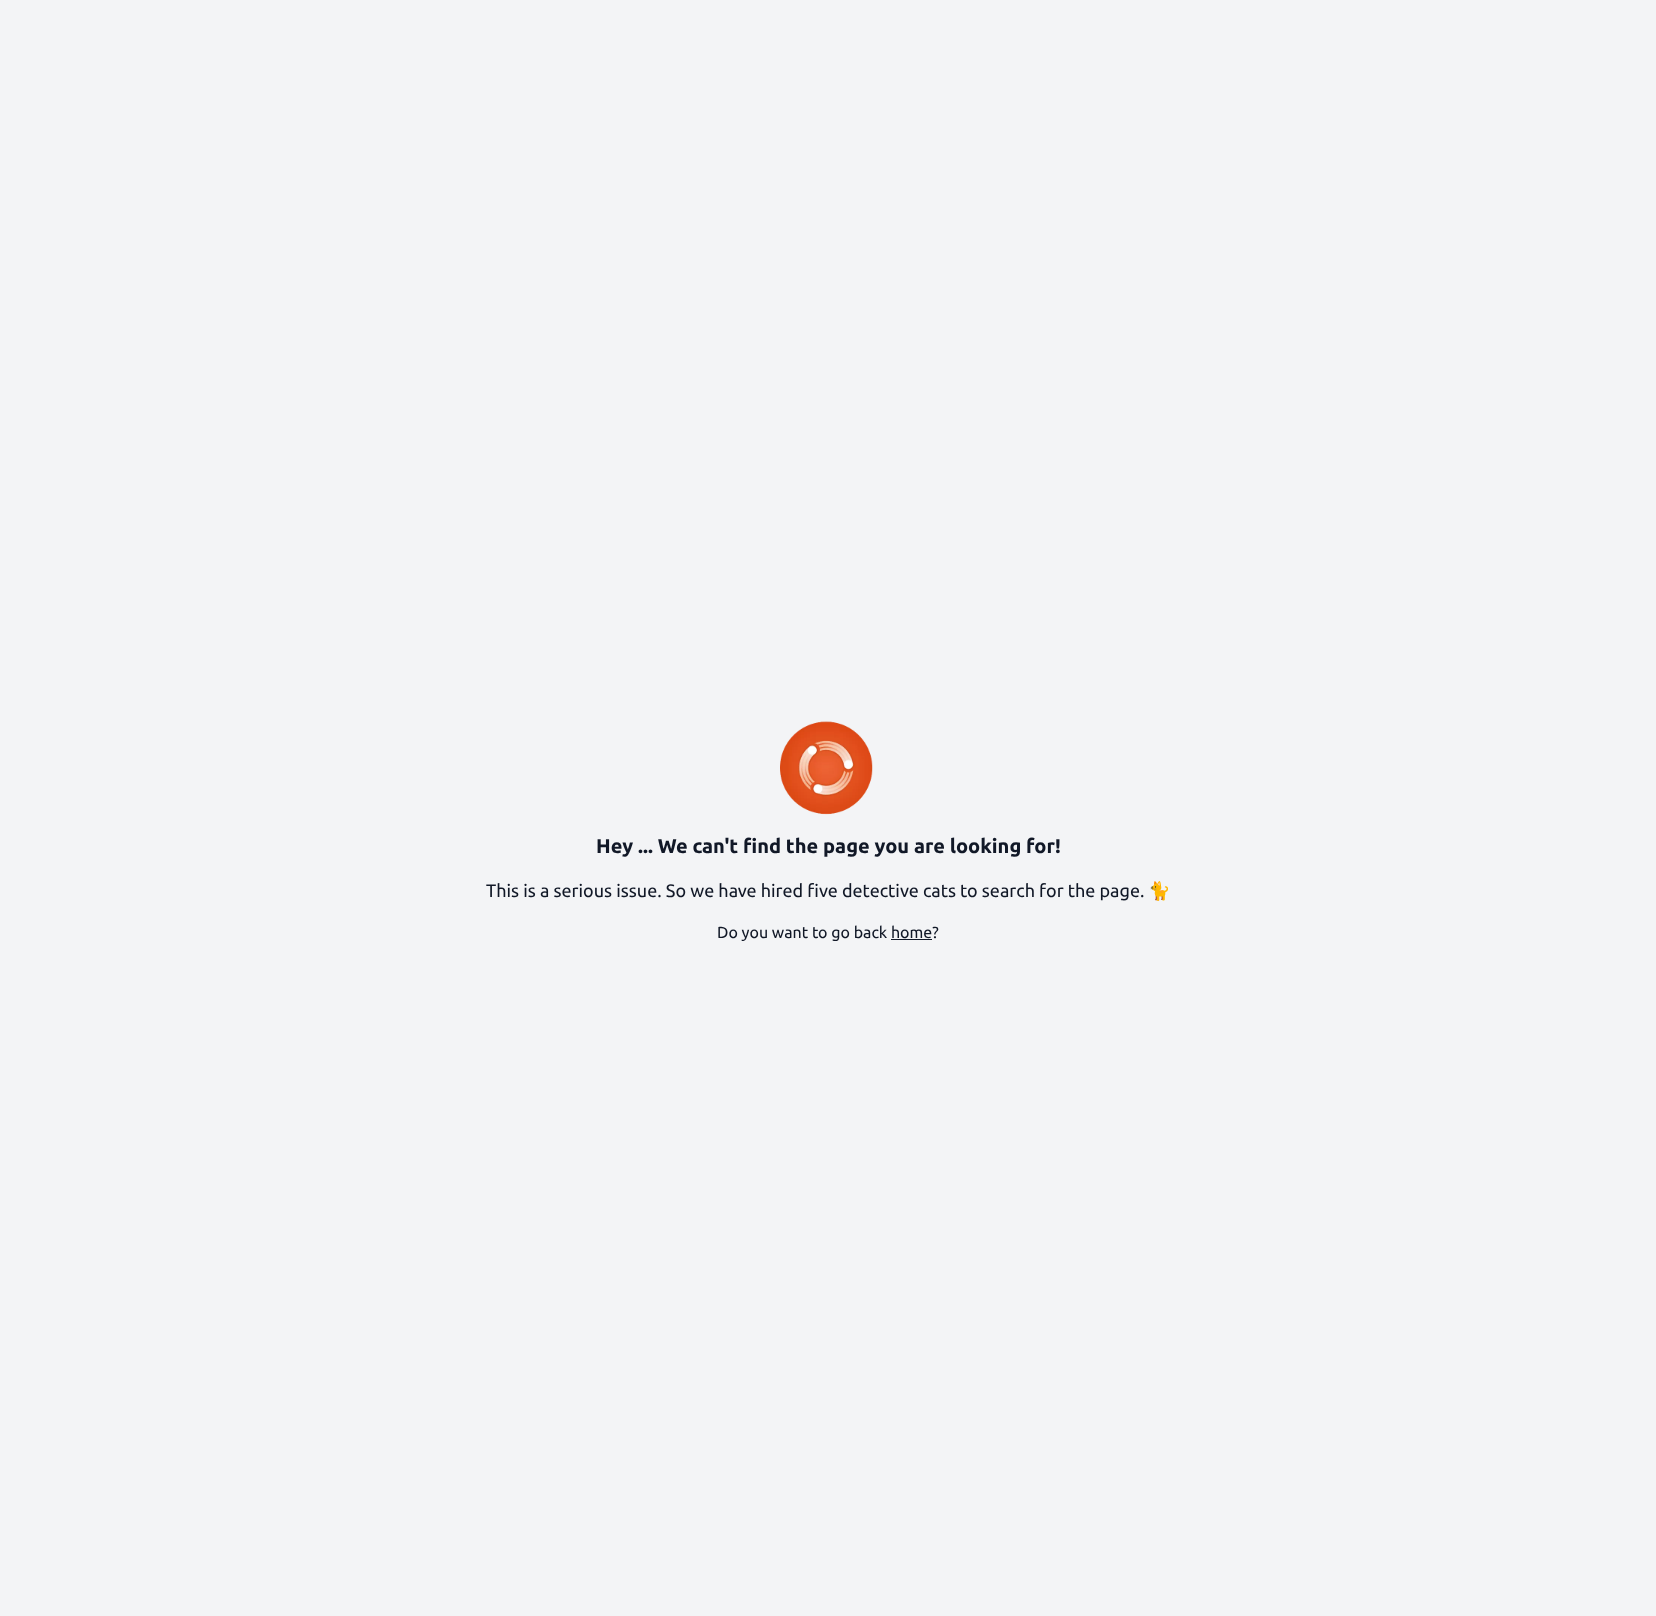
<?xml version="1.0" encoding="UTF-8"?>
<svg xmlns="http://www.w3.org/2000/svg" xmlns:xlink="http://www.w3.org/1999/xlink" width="1656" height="1616">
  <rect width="100%" height="100%" fill="#f3f4f6" />
  <image x="780" y="721" width="93" height="94" xlink:href="image1.png" />
  <rect x="891" y="939" width="41" height="1" fill="#111827" />
  <text x="596" y="853" style="font-family: Ubuntu; font-size: 20px; font-weight: bold; fill: #111827">Hey ... We can't find the page you are looking for!</text>
  <text x="486" y="897" style="font-family: Ubuntu; font-size: 18px; fill: #111827">This is a serious issue. So we have hired five detective cats to search for the page.</text>
  <text x="1148" y="897" style="font-family: Noto Color Emoji; font-size: 18px; fill: #111827">🐈</text>
  <text x="717" y="938" style="font-family: Ubuntu; font-size: 16px; fill: #111827">Do you want to go back home?</text>
</svg>
